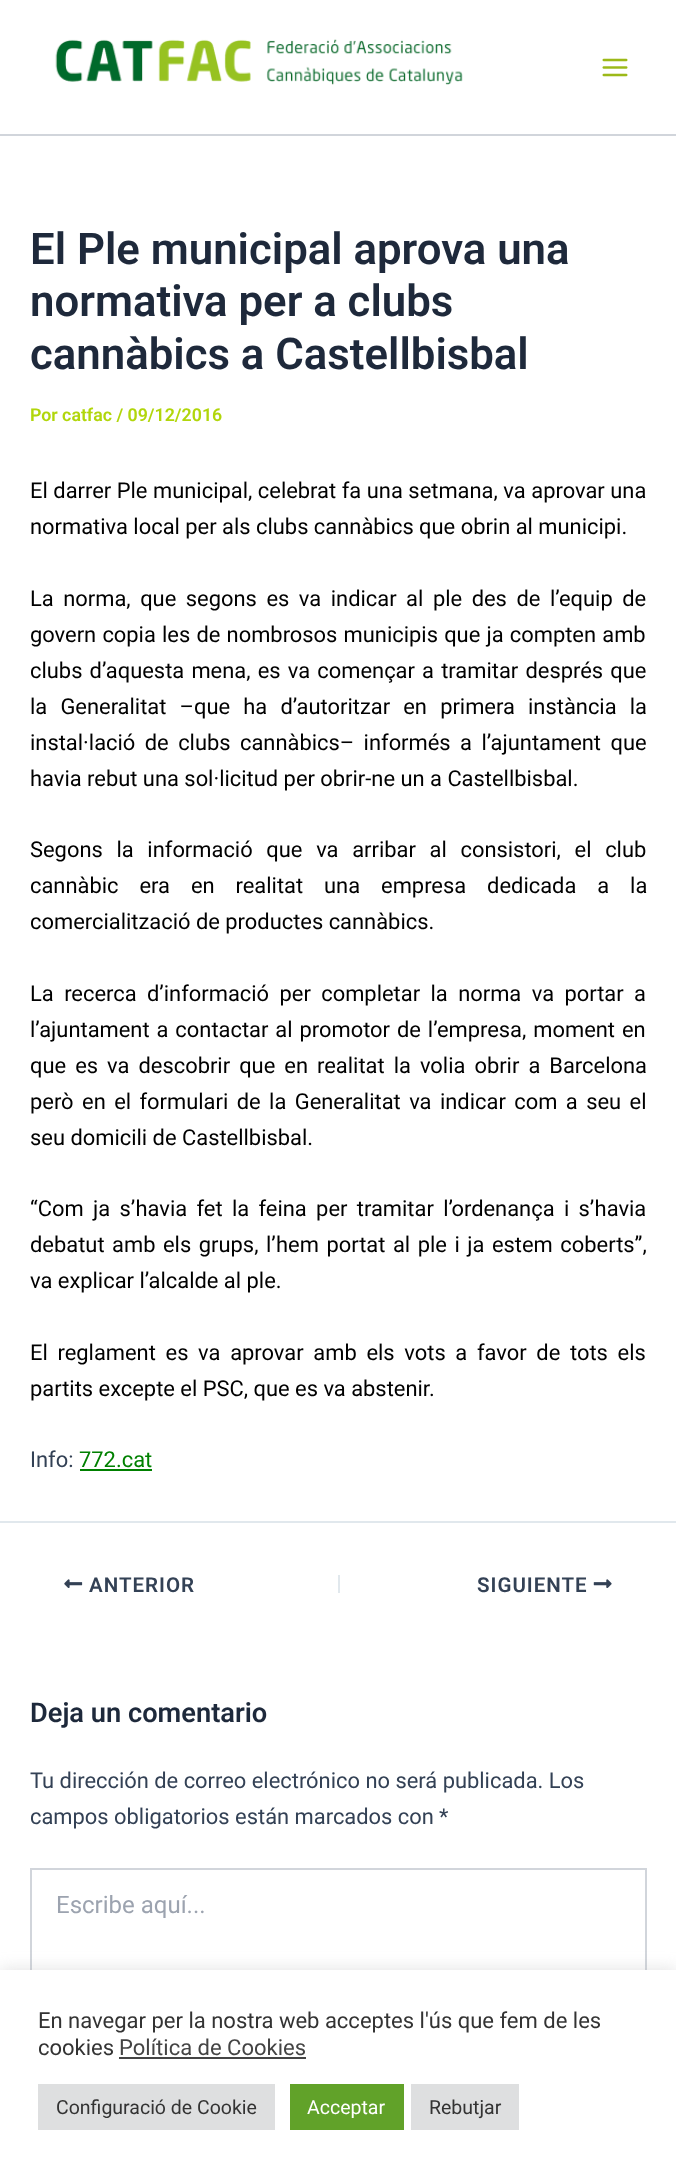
<?xml version="1.0" encoding="UTF-8"?>
<svg xmlns="http://www.w3.org/2000/svg" xmlns:xlink="http://www.w3.org/1999/xlink" width="676" height="2175">
  <rect width="100%" height="100%" fill="#ffffff" />
  <rect y="134" width="676" height="2" fill="#d1d5db" />
  <image x="55" y="39" width="408" height="46" xlink:href="image1.png" />
  <image x="602" y="58" width="26" height="19" xlink:href="image2.png" />
  <rect x="80" y="1469" width="72" height="2" fill="#008000" />
  <rect y="1521" width="676" height="2" fill="#e1e8ed" />
  <image x="64" y="1579" width="19" height="9" xlink:href="image3.png" />
  <rect x="338" y="1575" width="2" height="18" fill="#e1e8ed" />
  <image x="593" y="1579" width="19" height="9" xlink:href="image4.png" />
  <rect x="31" y="1869" width="615" height="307" fill="none" stroke="#d1d5db" stroke-width="2" />
  <rect y="1968" width="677" height="206" fill="#acabab" fill-opacity="0.3" filter="blur(7.5px)" />
  <rect y="1970" width="676" height="205" fill="#ffffff" />
  <rect x="119" y="2057" width="187" height="2" fill="#444444" />
  <rect x="38" y="2084" width="237" height="46" fill="#dedfe0" />
  <rect x="290" y="2084" width="114" height="46" fill="#61a229" />
  <rect x="411" y="2084" width="108" height="46" fill="#dedfe0" />
  <text x="30" y="264" style="font-family: Roboto; font-size: 43.75px; font-weight: 600; fill: #1e293b">El Ple municipal aprova una</text>
  <text x="30" y="316" style="font-family: Roboto; font-size: 43.75px; font-weight: 600; fill: #1e293b">normativa per a clubs</text>
  <text x="30" y="369" style="font-family: Roboto; font-size: 43.75px; font-weight: 600; fill: #1e293b">cannàbics a Castellbisbal</text>
  <text x="30" y="421" style="font-family: Roboto; font-size: 17.75px; font-weight: 600; fill: #b1d60b">Por catfac / 09/12/2016</text>
  <text x="30" y="498" word-spacing="0.1" style="font-family: Roboto; font-size: 21.9px; fill: #000000">El darrer Ple municipal, celebrat fa una setmana, va aprovar una</text>
  <text x="30" y="534" style="font-family: Roboto; font-size: 21.9px; fill: #000000">normativa local per als clubs cannàbics que obrin al municipi.</text>
  <text x="30" y="606" word-spacing="4.1" style="font-family: Roboto; font-size: 21.9px; fill: #000000">La norma, que segons es va indicar al ple des de l’equip de</text>
  <text x="30" y="642" word-spacing="0.75" style="font-family: Roboto; font-size: 21.9px; fill: #000000">govern copia les de nombrosos municipis que ja compten amb</text>
  <text x="30" y="678" word-spacing="1.75" style="font-family: Roboto; font-size: 21.9px; fill: #000000">clubs d’aquesta mena, es va començar a tramitar després que</text>
  <text x="30" y="714" word-spacing="7.75" style="font-family: Roboto; font-size: 21.9px; fill: #000000">la Generalitat –que ha d’autoritzar en primera instància la</text>
  <text x="30" y="750" word-spacing="4" style="font-family: Roboto; font-size: 21.9px; fill: #000000">instal·lació de clubs cannàbics– informés a l’ajuntament que</text>
  <text x="30" y="786" style="font-family: Roboto; font-size: 21.9px; fill: #000000">havia rebut una sol·licitud per obrir-ne un a Castellbisbal.</text>
  <text x="30" y="857" word-spacing="8.25" style="font-family: Roboto; font-size: 21.9px; fill: #000000">Segons la informació que va arribar al consistori, el club</text>
  <text x="30" y="893" word-spacing="15.5" style="font-family: Roboto; font-size: 21.9px; fill: #000000">cannàbic era en realitat una empresa dedicada a la</text>
  <text x="30" y="929" style="font-family: Roboto; font-size: 21.9px; fill: #000000">comercialització de productes cannàbics.</text>
  <text x="30" y="1001" word-spacing="5" style="font-family: Roboto; font-size: 21.9px; fill: #000000">La recerca d’informació per completar la norma va portar a</text>
  <text x="30" y="1037" word-spacing="1.5" style="font-family: Roboto; font-size: 21.9px; fill: #000000">l’ajuntament a contactar al promotor de l’empresa, moment en</text>
  <text x="30" y="1073" word-spacing="3.6" style="font-family: Roboto; font-size: 21.9px; fill: #000000">que es va descobrir que en realitat la volia obrir a Barcelona</text>
  <text x="30" y="1109" word-spacing="3" style="font-family: Roboto; font-size: 21.9px; fill: #000000">però en el formulari de la Generalitat va indicar com a seu el</text>
  <text x="30" y="1145" style="font-family: Roboto; font-size: 21.9px; fill: #000000">seu domicili de Castellbisbal.</text>
  <text x="30" y="1216" word-spacing="3.9" style="font-family: Roboto; font-size: 21.9px; fill: #000000">“Com ja s’havia fet la feina per tramitar l’ordenança i s’havia</text>
  <text x="30" y="1252" word-spacing="2.1" style="font-family: Roboto; font-size: 21.9px; fill: #000000">debatut amb els grups, l’hem portat al ple i ja estem coberts”,</text>
  <text x="30" y="1288" style="font-family: Roboto; font-size: 21.9px; fill: #000000">va explicar l’alcalde al ple.</text>
  <text x="30" y="1360" word-spacing="4.25" style="font-family: Roboto; font-size: 21.9px; fill: #000000">El reglament es va aprovar amb els vots a favor de tots els</text>
  <text x="30" y="1396" style="font-family: Roboto; font-size: 21.9px; fill: #000000">partits excepte el PSC, que es va abstenir.</text>
  <text x="30" y="1467" style="font-family: Roboto; font-size: 21.9px; fill: #334155">Info:</text>
  <text x="79" y="1467" style="font-family: Roboto; font-size: 21.9px; fill: #008000">772.cat</text>
  <text x="89" y="1592" style="font-family: Roboto; font-size: 20.5px; font-weight: 600; letter-spacing: 1px; fill: #334155">ANTERIOR</text>
  <text x="477" y="1592" style="font-family: Roboto; font-size: 20.5px; font-weight: 600; letter-spacing: 1px; fill: #334155">SIGUIENTE</text>
  <text x="30" y="1722" style="font-family: Roboto; font-size: 27.25px; font-weight: 600; fill: #1e293b">Deja un comentario</text>
  <text x="30" y="1788" style="font-family: Roboto; font-size: 21.9px; fill: #334155">Tu dirección de correo electrónico no será publicada. Los</text>
  <text x="30" y="1824" style="font-family: Roboto; font-size: 21.9px; fill: #334155">campos obligatorios están marcados con</text>
  <text x="439" y="1824" style="font-family: Roboto; font-size: 21.9px; fill: #334155">*</text>
  <text x="56" y="1913" style="font-family: Roboto; font-size: 24px; fill: #9ca3af">Escribe aquí...</text>
  <text x="38" y="2028" style="font-family: Roboto; font-size: 22px; fill: #333333">En navegar per la nostra web acceptes l'ús que fem de les</text>
  <text x="38" y="2055" style="font-family: Roboto; font-size: 22px; fill: #333333">cookies</text>
  <text x="119" y="2055" style="font-family: Roboto; font-size: 22px; fill: #444444">Política de Cookies</text>
  <text x="56" y="2114" style="font-family: Roboto; font-size: 19.5px; fill: #333333">Configuració de Cookie</text>
  <text x="307" y="2114" style="font-family: Roboto; font-size: 19.5px; fill: #ffffff">Acceptar</text>
  <text x="429" y="2114" style="font-family: Roboto; font-size: 19.5px; fill: #333333">Rebutjar</text>
</svg>
